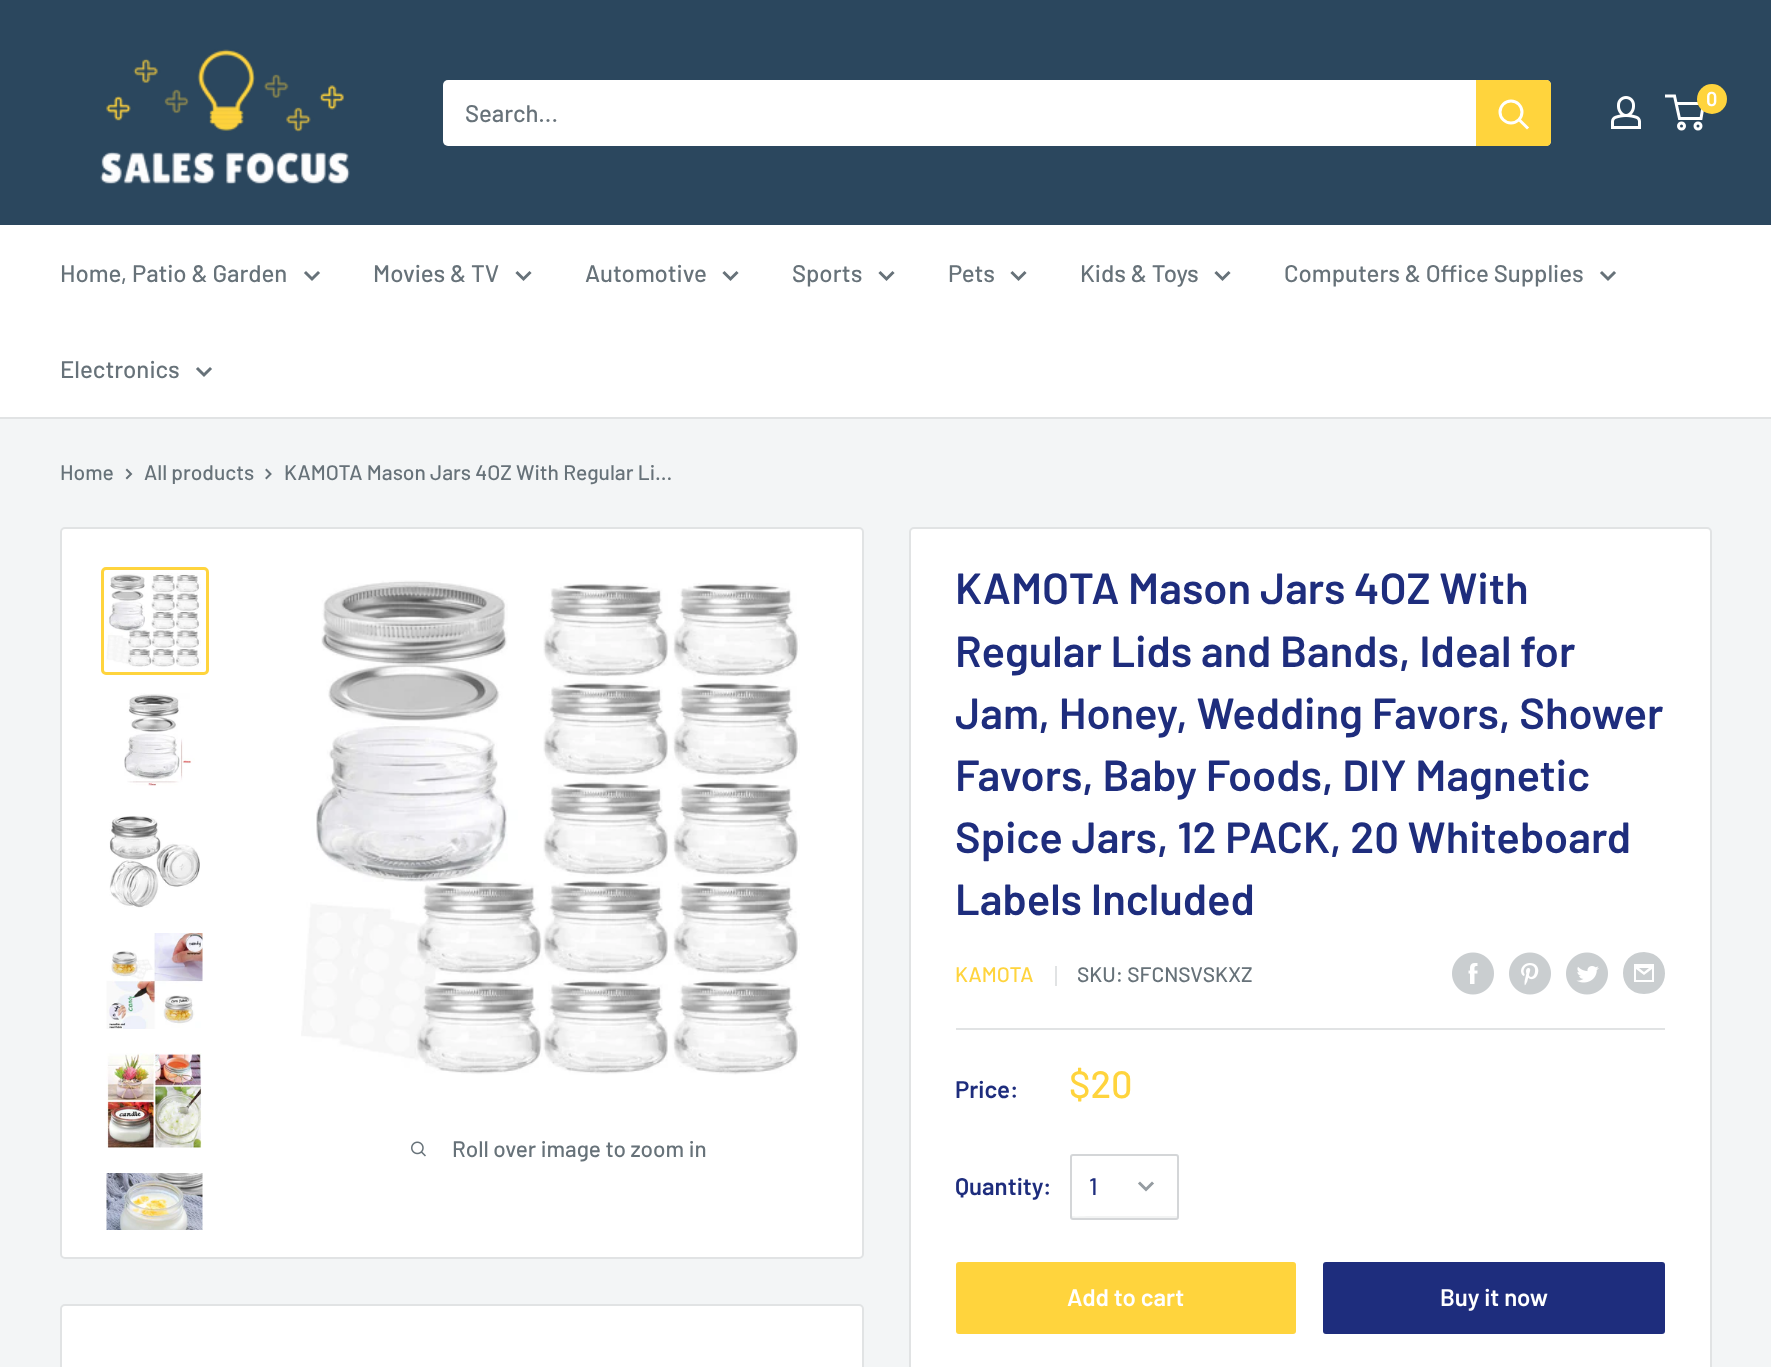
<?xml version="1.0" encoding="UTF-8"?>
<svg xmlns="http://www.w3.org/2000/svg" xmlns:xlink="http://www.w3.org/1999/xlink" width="1771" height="1367">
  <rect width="100%" height="100%" fill="#f3f5f6" />
  <rect width="1771" height="225" fill="#2b475e" />
  <image x="100" y="49" width="250" height="135" xlink:href="image1.png" />
  <image x="1611" y="96" width="30" height="33" xlink:href="image2.png" />
  <circle cx="1681.5" cy="126" r="3" fill="none" stroke="#ffffff" stroke-width="3" />
  <circle cx="1698" cy="126" r="3" fill="none" stroke="#ffffff" stroke-width="3" />
  <path d="M 1676 103.5 h 27.5 l -2.5 15 h -21.5 l -5 -22.5 h -9.5" fill="none" stroke="#ffffff" stroke-width="3" />
  <circle cx="1712" cy="99" r="15" fill="#ffd43d" />
  <rect x="443" y="80" width="1108" height="66" rx="5" fill="#ffffff" />
  <path d="M 1476 80 h 70 c 3 0 5 2 5 5 v 56 c 0 3 -2 5 -5 5 h -70 z" fill="#ffd43d" />
  <path d="M 1527 127.5 l -7.5 -7.5" fill="none" stroke="#ffffff" stroke-width="3" stroke-linecap="square" />
  <circle cx="1511" cy="112" r="11" fill="none" stroke="#ffffff" stroke-width="3" />
  <rect y="225" width="1771" height="192" fill="#ffffff" />
  <rect y="417" width="1771" height="2" fill="#e1e3e4" />
  <path d="M 318 273 l -6 6 l -6 -6" fill="none" stroke="#677279" stroke-width="3" stroke-linecap="square" />
  <path d="M 529.5 273 l -6 6 l -6 -6" fill="none" stroke="#677279" stroke-width="3" stroke-linecap="square" />
  <path d="M 736.5 273 l -6 6 l -6 -6" fill="none" stroke="#677279" stroke-width="3" stroke-linecap="square" />
  <path d="M 892.5 273 l -6 6 l -6 -6" fill="none" stroke="#677279" stroke-width="3" stroke-linecap="square" />
  <path d="M 1024.5 273 l -6 6 l -6 -6" fill="none" stroke="#677279" stroke-width="3" stroke-linecap="square" />
  <path d="M 1228.5 273 l -6 6 l -6 -6" fill="none" stroke="#677279" stroke-width="3" stroke-linecap="square" />
  <path d="M 1614 273 l -6 6 l -6 -6" fill="none" stroke="#677279" stroke-width="3" stroke-linecap="square" />
  <path d="M 210 369 l -6 6 l -6 -6" fill="none" stroke="#677279" stroke-width="3" stroke-linecap="square" />
  <path d="M 127 470 l 4 4 l -4 4" fill="none" stroke="#677279" stroke-width="2" stroke-linecap="square" />
  <path d="M 266.5 470 l 4 4 l -4 4" fill="none" stroke="#677279" stroke-width="2" stroke-linecap="square" />
  <rect x="61" y="528" width="802" height="730" rx="4" fill="#ffffff" stroke="#e1e3e4" stroke-width="2" />
  <rect x="102.5" y="568.5" width="105" height="105" rx="3.5" fill="none" stroke="#ffd43d" stroke-width="3" />
  <image x="106" y="573" width="95" height="94" xlink:href="image3.png" />
  <image x="124" y="693" width="71" height="93" xlink:href="image4.png" />
  <image x="109" y="816" width="91" height="92" xlink:href="image5.png" />
  <image x="106" y="933" width="97" height="96" xlink:href="image6.png" />
  <image x="106" y="1053" width="96" height="95" xlink:href="image7.png" />
  <image x="106" y="1173" width="97" height="57" xlink:href="image8.png" />
  <image x="301" y="580" width="499" height="495" xlink:href="image9.png" />
  <image x="411" y="1141" width="15" height="16" xlink:href="image10.png" />
  <rect x="910" y="528" width="801" height="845" rx="4" fill="#ffffff" stroke="#e1e3e4" stroke-width="2" />
  <rect x="1055" y="966" width="2" height="20" fill="#e1e3e4" />
  <image x="1452" y="952" width="42" height="43" xlink:href="image11.png" />
  <image x="1509" y="952" width="42" height="43" xlink:href="image12.png" />
  <image x="1566" y="952" width="42" height="43" xlink:href="image13.png" />
  <path d="M 1644 994 c -28 0 -28 -42 0 -42 c 28 1 28 42 0 42 z m -5 -26 h 10 l -5 4 z m 13 1 v 11 h -16 v -11 l 8 6 z m 2 -5 h -20 v 18 h 20 z" fill="#caced0" />
  <rect x="956" y="1028" width="709" height="2" fill="#e1e3e4" />
  <path d="M 1071 1215 v 1 c 0 1 1 2 1 2 h 104 c 1 0 2 -1 2 -2 v -41 l -1 41 h -87 c -4 0 -15 1 -18 0 z" fill="#f2f3f3" />
  <rect x="1071" y="1155" width="107" height="64" rx="2" fill="none" stroke="#d4d6d8" stroke-width="2" />
  <path d="M 1152 1183.5 l -6 6 l -6 -6" fill="none" stroke="#959ca1" stroke-width="3" stroke-linecap="square" />
  <rect x="956" y="1262" width="340" height="72" rx="3" fill="#ffd43d" />
  <rect x="1323" y="1262" width="342" height="72" rx="3" fill="#1e2d7d" />
  <rect x="61" y="1305" width="802" height="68" rx="4" fill="#ffffff" stroke="#e1e3e4" stroke-width="2" />
  <text x="1706" y="106" style="font-family: Barlow; font-size: 20px; font-weight: 600; fill: #ffffff">0</text>
  <text x="465" y="122" style="font-family: Barlow; font-size: 24px; font-weight: 500; fill: #677279">Search...</text>
  <text x="60" y="282" style="font-family: Barlow; font-size: 24px; font-weight: 500; fill: #677279">Home, Patio &amp; Garden</text>
  <text x="373" y="282" style="font-family: Barlow; font-size: 24px; font-weight: 500; fill: #677279">Movies &amp; TV</text>
  <text x="585" y="282" style="font-family: Barlow; font-size: 24px; font-weight: 500; fill: #677279">Automotive</text>
  <text x="792" y="282" style="font-family: Barlow; font-size: 24px; font-weight: 500; fill: #677279">Sports</text>
  <text x="948" y="282" style="font-family: Barlow; font-size: 24px; font-weight: 500; fill: #677279">Pets</text>
  <text x="1080" y="282" style="font-family: Barlow; font-size: 24px; font-weight: 500; fill: #677279">Kids &amp; Toys</text>
  <text x="1284" y="282" style="font-family: Barlow; font-size: 24px; font-weight: 500; fill: #677279">Computers &amp; Office Supplies</text>
  <text x="60" y="378" style="font-family: Barlow; font-size: 24px; font-weight: 500; fill: #677279">Electronics</text>
  <text x="60" y="480" style="font-family: Barlow; font-size: 21px; font-weight: 500; fill: #677279">Home</text>
  <text x="144" y="480" style="font-family: Barlow; font-size: 21px; font-weight: 500; fill: #677279">All products</text>
  <text x="284" y="480" style="font-family: Barlow; font-size: 21px; font-weight: 500; fill: #677279">KAMOTA Mason Jars 4OZ With Regular Li...</text>
  <text x="452" y="1157" style="font-family: Barlow; font-size: 22.5px; font-weight: 500; fill: #677279">Roll over image to zoom in</text>
  <text x="955" y="604" style="font-family: Barlow; font-size: 43.5px; font-weight: 600; fill: #1e2d7d">KAMOTA Mason Jars 4OZ With</text>
  <text x="955" y="667" style="font-family: Barlow; font-size: 43.5px; font-weight: 600; fill: #1e2d7d">Regular Lids and Bands, Ideal for</text>
  <text x="955" y="729" style="font-family: Barlow; font-size: 43.5px; font-weight: 600; fill: #1e2d7d">Jam, Honey, Wedding Favors, Shower</text>
  <text x="955" y="791" style="font-family: Barlow; font-size: 43.5px; font-weight: 600; fill: #1e2d7d">Favors, Baby Foods, DIY Magnetic</text>
  <text x="955" y="853" style="font-family: Barlow; font-size: 43.5px; font-weight: 600; fill: #1e2d7d">Spice Jars, 12 PACK, 20 Whiteboard</text>
  <text x="955" y="915" style="font-family: Barlow; font-size: 43.5px; font-weight: 600; fill: #1e2d7d">Labels Included</text>
  <text x="955" y="982" style="font-family: Barlow; font-size: 21px; font-weight: 500; fill: #ffd43d">KAMOTA</text>
  <text x="1077" y="982" style="font-family: Barlow; font-size: 21px; font-weight: 500; fill: #677279">SKU: SFCNSVSKXZ</text>
  <text x="955" y="1098" style="font-family: Barlow; font-size: 24px; font-weight: 600; fill: #1e2d7d">Price:</text>
  <text x="1069" y="1098" style="font-family: Barlow; font-size: 38px; font-weight: 500; fill: #ffd43d">$20</text>
  <text x="955" y="1195" style="font-family: Barlow; font-size: 24px; font-weight: 600; fill: #1e2d7d">Quantity:</text>
  <text x="1089" y="1195" style="font-family: Barlow; font-size: 24px; font-weight: 500; fill: #1e2d7d">1</text>
  <text x="1067" y="1306" style="font-family: Barlow; font-size: 24px; font-weight: 600; fill: #ffffff">Add to cart</text>
  <text x="1440" y="1306" style="font-family: Barlow; font-size: 24px; font-weight: 600; fill: #ffffff">Buy it now</text>
</svg>
